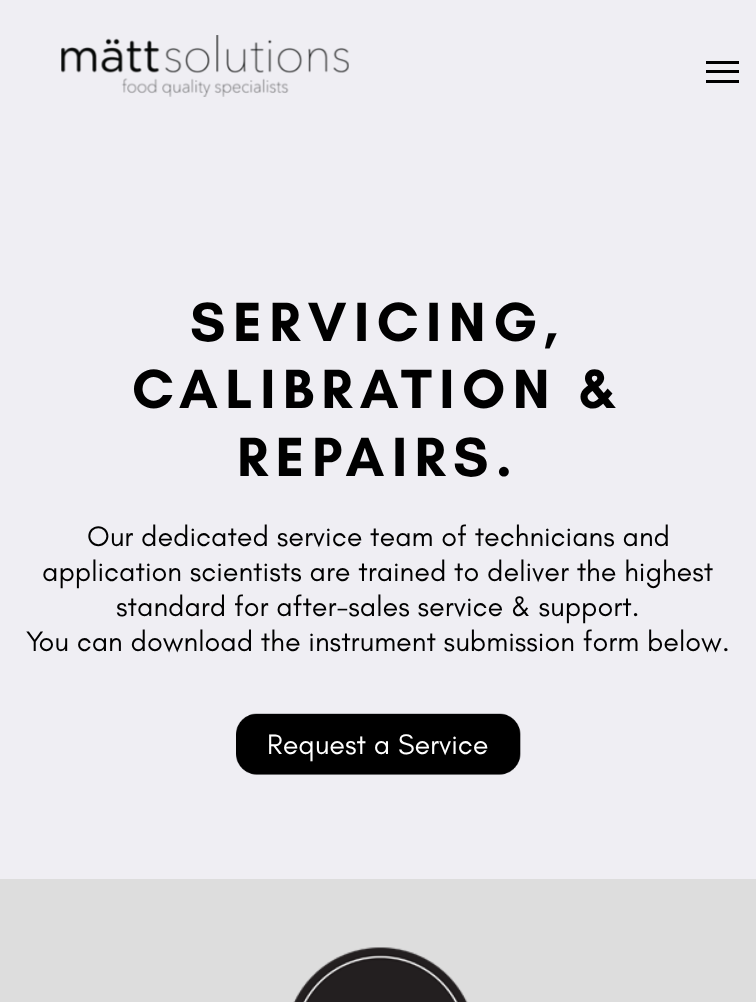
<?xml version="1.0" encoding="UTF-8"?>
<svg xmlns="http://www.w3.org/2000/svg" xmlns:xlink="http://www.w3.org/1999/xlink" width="756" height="1002">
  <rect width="100%" height="100%" fill="#efeef3" />
  <image x="61" y="35" width="288" height="62" xlink:href="image1.png" />
  <rect x="706" y="61" width="33" height="3" fill="#000000" />
  <rect x="706" y="70" width="33" height="3" fill="#000000" />
  <rect x="706" y="80" width="33" height="3" fill="#000000" />
  <image x="236" y="713" width="285" height="62" xlink:href="image2.png" />
  <rect y="879" width="756" height="123" fill="#dddddd" />
  <image x="293" y="947" width="175" height="55" xlink:href="image3.png" />
  <text x="190" y="341" style="font-family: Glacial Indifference; font-size: 56.25px; font-weight: bold; letter-spacing: 7.5px; fill: #000000">SERVICING,</text>
  <text x="132" y="408" style="font-family: Glacial Indifference; font-size: 56.25px; font-weight: bold; letter-spacing: 7.5px; fill: #000000">CALIBRATION &amp;</text>
  <text x="237" y="476" style="font-family: Glacial Indifference; font-size: 56.25px; font-weight: bold; letter-spacing: 7.5px; fill: #000000">REPAIRS.</text>
  <text x="87" y="546" style="font-family: Glacial Indifference; font-size: 28.75px; fill: #000000">Our dedicated service team of technicians and</text>
  <text x="42" y="581" style="font-family: Glacial Indifference; font-size: 28.75px; fill: #000000">application scientists are trained to deliver the highest</text>
  <text x="116" y="616" style="font-family: Glacial Indifference; font-size: 28.75px; fill: #000000">standard for after-sales service &amp; support.</text>
  <text x="26" y="651" style="font-family: Glacial Indifference; font-size: 28.75px; fill: #000000">You can download the instrument submission form below.</text>
  <text x="267" y="754" style="font-family: Glacial Indifference; font-size: 28.75px; fill: #ffffff">Request a Service</text>
</svg>
